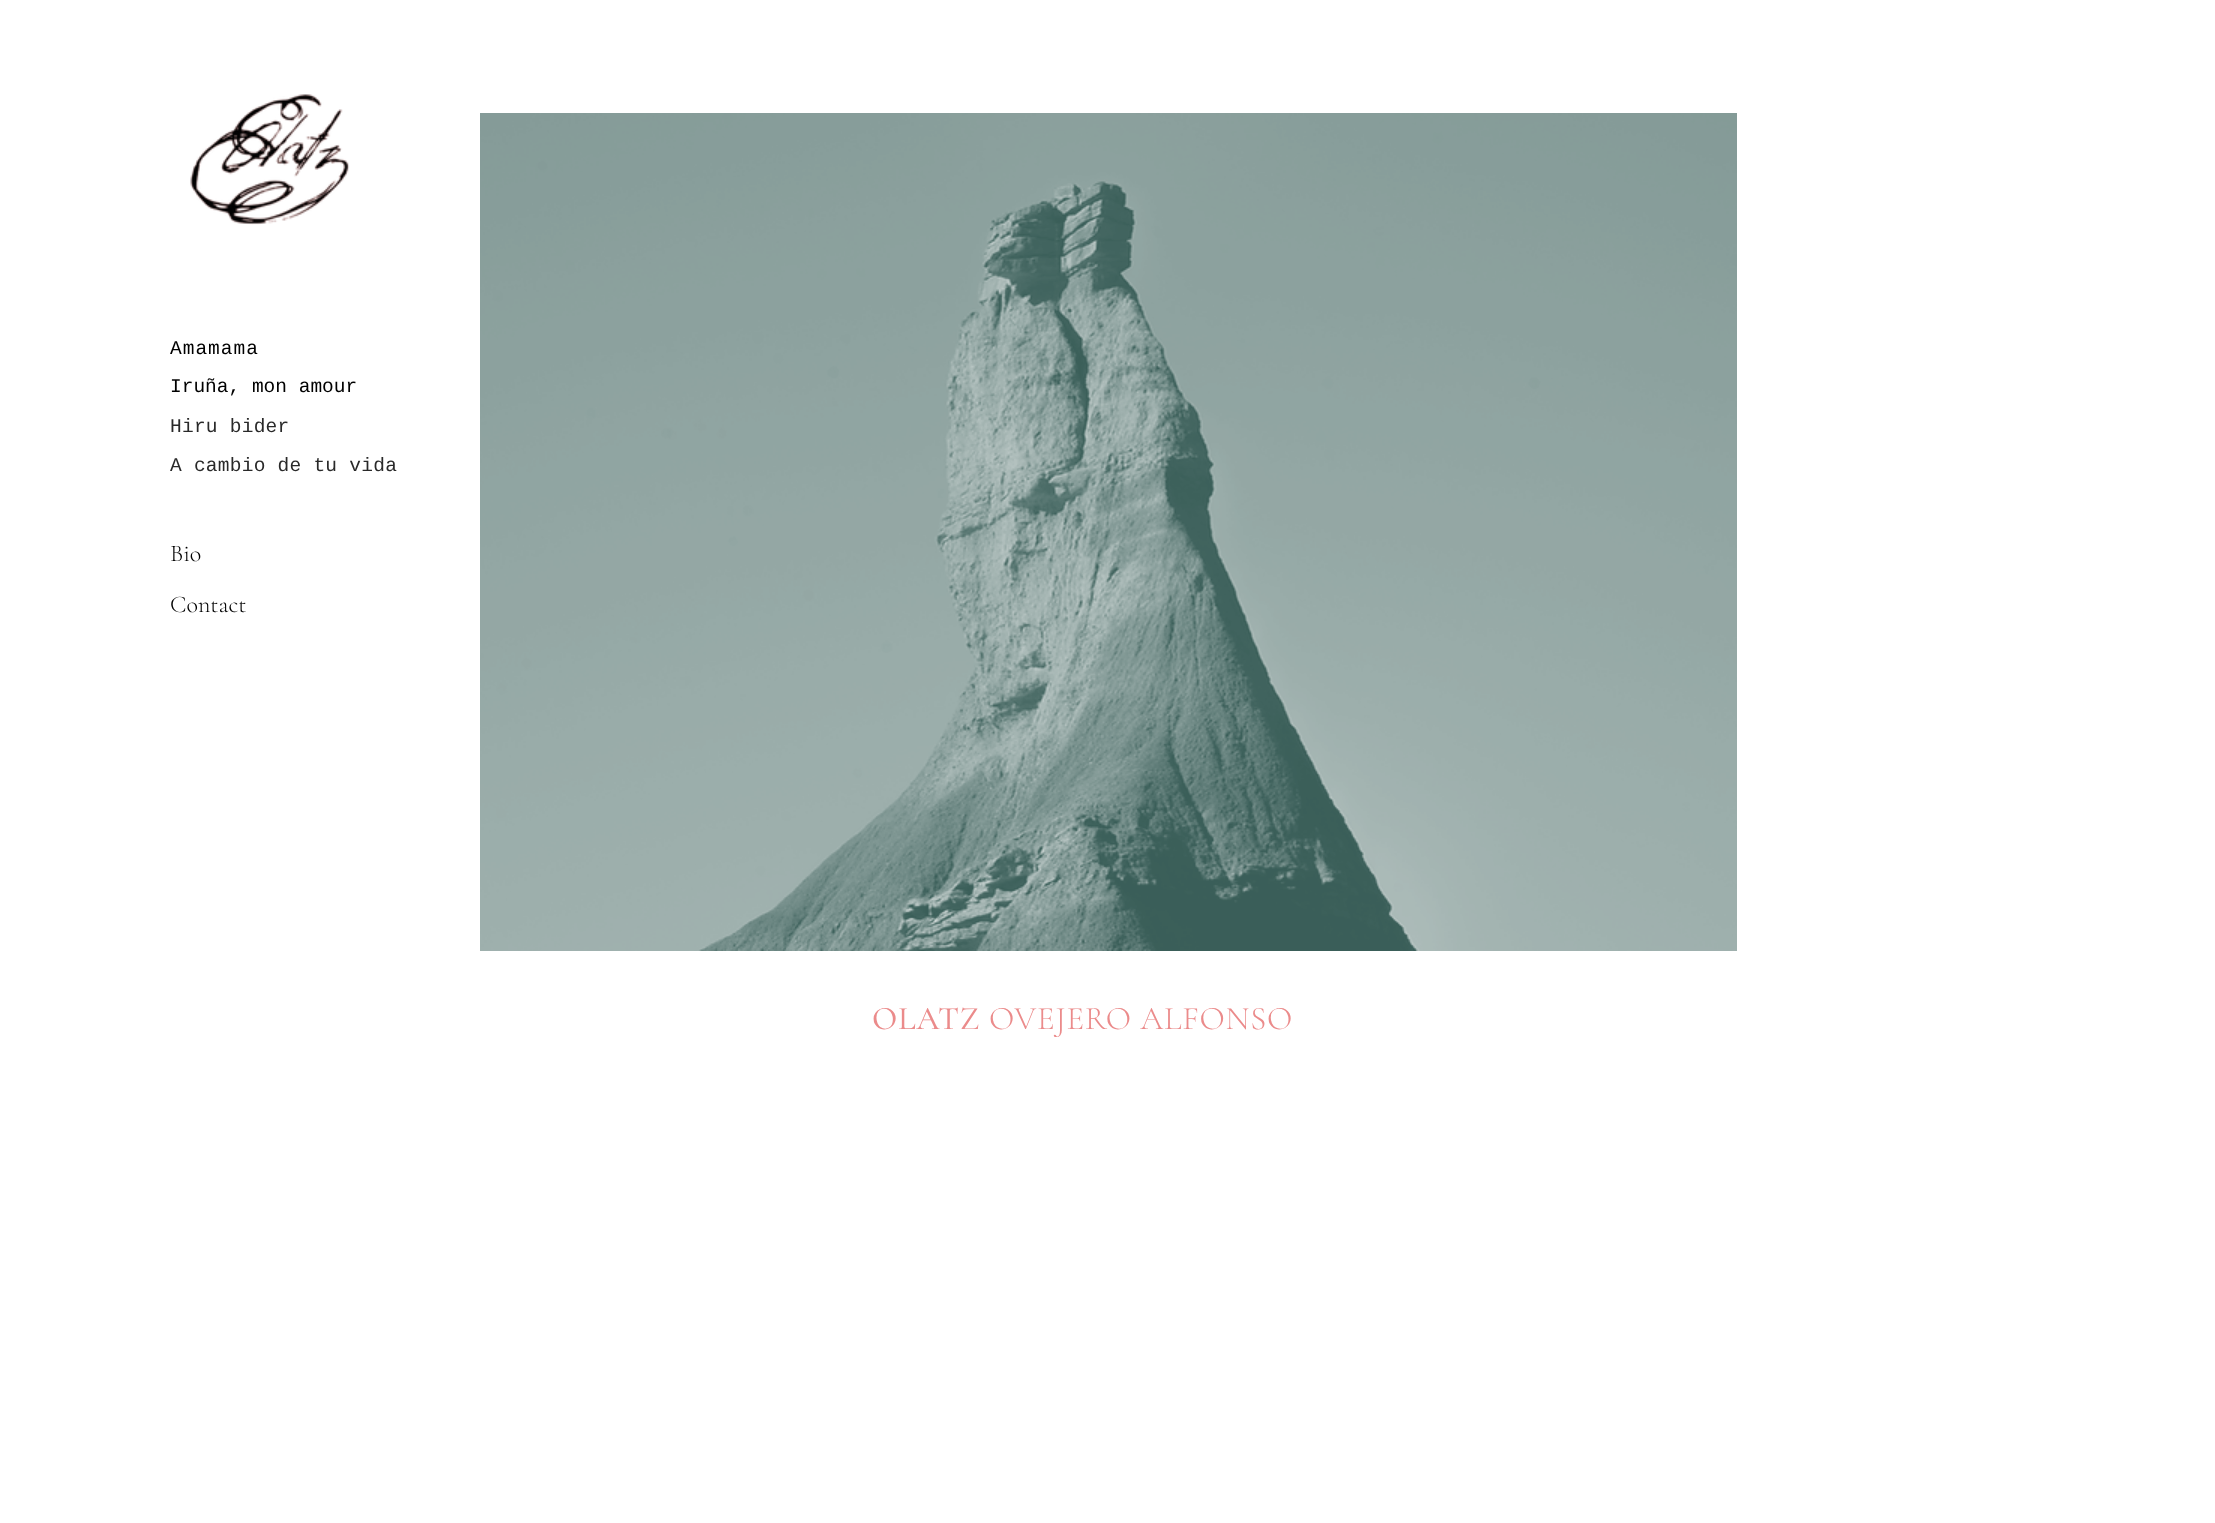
<?xml version="1.0" encoding="UTF-8"?>
<svg xmlns="http://www.w3.org/2000/svg" xmlns:xlink="http://www.w3.org/1999/xlink" width="2215" height="1523">
  <rect width="100%" height="100%" fill="#ffffff" />
  <image x="190" y="94" width="160" height="131" xlink:href="image1.png" />
  <image x="480" y="113" width="1257" height="838" xlink:href="image2.png" />
  <text x="170" y="354" style="font-family: Liberation Mono; font-size: 19.5px; letter-spacing: 1px; fill: #000000">Amamama</text>
  <text x="170" y="392" style="font-family: Liberation Mono; font-size: 19.5px; fill: #000000">Iruña, mon amour</text>
  <text x="170" y="432" style="font-family: Liberation Mono; font-size: 19.5px; letter-spacing: 0.25px; fill: #292929">Hiru bider</text>
  <text x="170" y="471" style="font-family: Liberation Mono; font-size: 19.5px; letter-spacing: 0.25px; fill: #292929">A cambio de tu vida</text>
  <text x="170" y="561" style="font-family: Cormorant Garamond; font-size: 24px; font-weight: 300; fill: #000000">Bio</text>
  <text x="170" y="612" style="font-family: Cormorant Garamond; font-size: 24px; font-weight: 300; fill: #000000">Contact</text>
  <text x="872" y="1029" style="font-family: Cormorant Garamond; font-size: 33px; font-weight: 500; letter-spacing: 0.7px; fill: #eb8b8b">OLATZ</text>
  <text x="989" y="1029" style="font-family: Cormorant Garamond; font-size: 33px; font-weight: 300; letter-spacing: 0.7px; fill: #eb8b8b">OVEJERO ALFONSO</text>
</svg>
